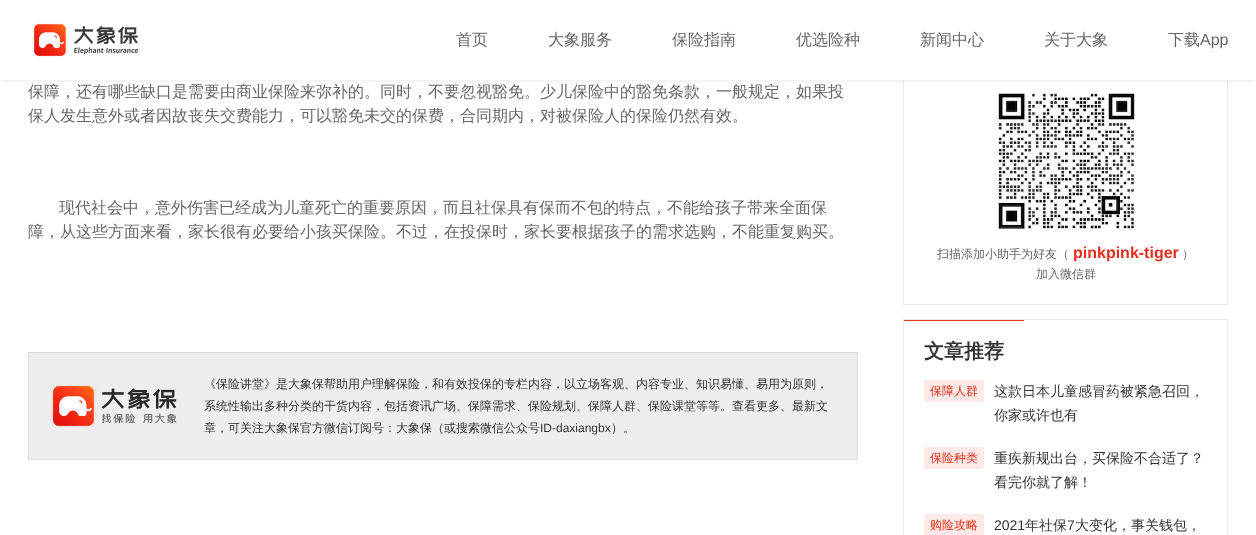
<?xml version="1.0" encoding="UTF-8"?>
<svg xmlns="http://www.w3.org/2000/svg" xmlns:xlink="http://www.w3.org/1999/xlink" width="1256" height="535">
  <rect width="100%" height="100%" fill="#ffffff" />
  <rect x="903.5" y="-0.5" width="324" height="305" fill="none" stroke="#eaeaea" />
  <rect width="1256" height="80" fill="#b2b2b2" fill-opacity="0.35" filter="blur(3px)" />
  <rect width="1256" height="80" fill="#ffffff" />
  <image x="33" y="23" width="105" height="34" xlink:href="image1.png" />
  <rect x="28.5" y="352.5" width="829" height="107" fill="#eeeeee" stroke="#dcdcdc" />
  <image x="50" y="385" width="127" height="42" xlink:href="image2.png" />
  <image x="998" y="92" width="137" height="137" xlink:href="image3.png" />
  <rect x="903.5" y="319.5" width="324" height="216" fill="none" stroke="#eaeaea" />
  <rect x="904" y="320" width="120" height="1" fill="#e62f17" />
  <rect x="924" y="380" width="60" height="22" rx="2" fill="#fdeae8" />
  <rect x="924" y="447" width="60" height="22" rx="2" fill="#fdeae8" />
  <rect x="924" y="514" width="60" height="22" rx="2" fill="#fdeae8" />
  <text x="456" y="45" style="font-family: WenQuanYi Zen Hei; font-size: 16px; font-weight: 500; fill: #666666">首页</text>
  <text x="548" y="45" style="font-family: WenQuanYi Zen Hei; font-size: 16px; font-weight: 500; fill: #666666">大象服务</text>
  <text x="672" y="45" style="font-family: WenQuanYi Zen Hei; font-size: 16px; font-weight: 500; fill: #666666">保险指南</text>
  <text x="796" y="45" style="font-family: WenQuanYi Zen Hei; font-size: 16px; font-weight: 500; fill: #666666">优选险种</text>
  <text x="920" y="45" style="font-family: WenQuanYi Zen Hei; font-size: 16px; font-weight: 500; fill: #666666">新闻中心</text>
  <text x="1044" y="45" style="font-family: WenQuanYi Zen Hei; font-size: 16px; font-weight: 500; fill: #666666">关于大象</text>
  <text x="1168" y="45" style="font-family: WenQuanYi Zen Hei; font-size: 16px; font-weight: 500; fill: #666666">下载</text>
  <text x="1200" y="45" style="font-family: Liberation Sans; font-size: 16px; fill: #666666">App</text>
  <text x="28" y="97" style="font-family: WenQuanYi Zen Hei; font-size: 16px; font-weight: 500; fill: #666666">保障，还有哪些缺口是需要由商业保险来弥补的。同时，不要忽视豁免。少儿保险中的豁免条款，一般规定，如果投</text>
  <text x="28" y="121" style="font-family: WenQuanYi Zen Hei; font-size: 16px; font-weight: 500; fill: #666666">保人发生意外或者因故丧失交费能力，可以豁免未交的保费，合同期内，对被保险人的保险仍然有效。</text>
  <text x="59" y="213" style="font-family: WenQuanYi Zen Hei; font-size: 16px; font-weight: 500; fill: #666666">现代社会中，意外伤害已经成为儿童死亡的重要原因，而且社保具有保而不包的特点，不能给孩子带来全面保</text>
  <text x="28" y="237" style="font-family: WenQuanYi Zen Hei; font-size: 16px; font-weight: 500; fill: #666666">障，从这些方面来看，家长很有必要给小孩买保险。不过，在投保时，家长要根据孩子的需求选购，不能重复购买。</text>
  <text x="204" y="388" style="font-family: WenQuanYi Zen Hei; font-size: 12px; font-weight: 500; fill: #333333">《保险讲堂》是大象保帮助用户理解保险，和有效投保的专栏内容，以立场客观、内容专业、知识易懂、易用为原则，</text>
  <text x="204" y="410" style="font-family: WenQuanYi Zen Hei; font-size: 12px; font-weight: 500; fill: #333333">系统性输出多种分类的干货内容，包括资讯广场、保障需求、保险规划、保障人群、保险课堂等等。查看更多、最新文</text>
  <text x="204" y="432" style="font-family: WenQuanYi Zen Hei; font-size: 12px; font-weight: 500; fill: #333333">章，可关注大象保官方微信订阅号：大象保（或搜索微信公众号</text>
  <text x="540" y="432" style="font-family: Liberation Sans; font-size: 12px; fill: #333333">ID-daxiangbx</text>
  <text x="611" y="432" style="font-family: WenQuanYi Zen Hei; font-size: 12px; font-weight: 500; fill: #333333">）。</text>
  <text x="937" y="258" style="font-family: WenQuanYi Zen Hei; font-size: 12px; font-weight: 500; fill: #666666">扫描添加小助手为好友（</text>
  <text x="1073" y="258" style="font-family: Liberation Sans; font-size: 16px; font-weight: bold; fill: #e52e1e">pinkpink-tiger</text>
  <text x="1182" y="258" style="font-family: WenQuanYi Zen Hei; font-size: 12px; font-weight: 500; fill: #666666">）</text>
  <text x="1036" y="278" style="font-family: WenQuanYi Zen Hei; font-size: 12px; font-weight: 500; fill: #666666">加入微信群</text>
  <text x="924" y="358" style="font-family: WenQuanYi Zen Hei; font-size: 20px; font-weight: bold; fill: #333333">文章推荐</text>
  <text x="930" y="395" style="font-family: WenQuanYi Zen Hei; font-size: 12px; font-weight: 500; fill: #e62f17">保障人群</text>
  <text x="994" y="396" style="font-family: WenQuanYi Zen Hei; font-size: 14px; font-weight: 500; fill: #333333">这款日本儿童感冒药被紧急召回，</text>
  <text x="994" y="420" style="font-family: WenQuanYi Zen Hei; font-size: 14px; font-weight: 500; fill: #333333">你家或许也有</text>
  <text x="930" y="462" style="font-family: WenQuanYi Zen Hei; font-size: 12px; font-weight: 500; fill: #e62f17">保险种类</text>
  <text x="994" y="463" style="font-family: WenQuanYi Zen Hei; font-size: 14px; font-weight: 500; fill: #333333">重疾新规出台，买保险不合适了？</text>
  <text x="994" y="487" style="font-family: WenQuanYi Zen Hei; font-size: 14px; font-weight: 500; fill: #333333">看完你就了解！</text>
  <text x="930" y="529" style="font-family: WenQuanYi Zen Hei; font-size: 12px; font-weight: 500; fill: #e62f17">购险攻略</text>
  <text x="994" y="530" style="font-family: Liberation Sans; font-size: 14px; fill: #333333">2021</text>
  <text x="1025" y="530" style="font-family: WenQuanYi Zen Hei; font-size: 14px; font-weight: 500; fill: #333333">年社保</text>
  <text x="1067" y="530" style="font-family: Liberation Sans; font-size: 14px; fill: #333333">7</text>
  <text x="1075" y="530" style="font-family: WenQuanYi Zen Hei; font-size: 14px; font-weight: 500; fill: #333333">大变化，事关钱包，</text>
</svg>
